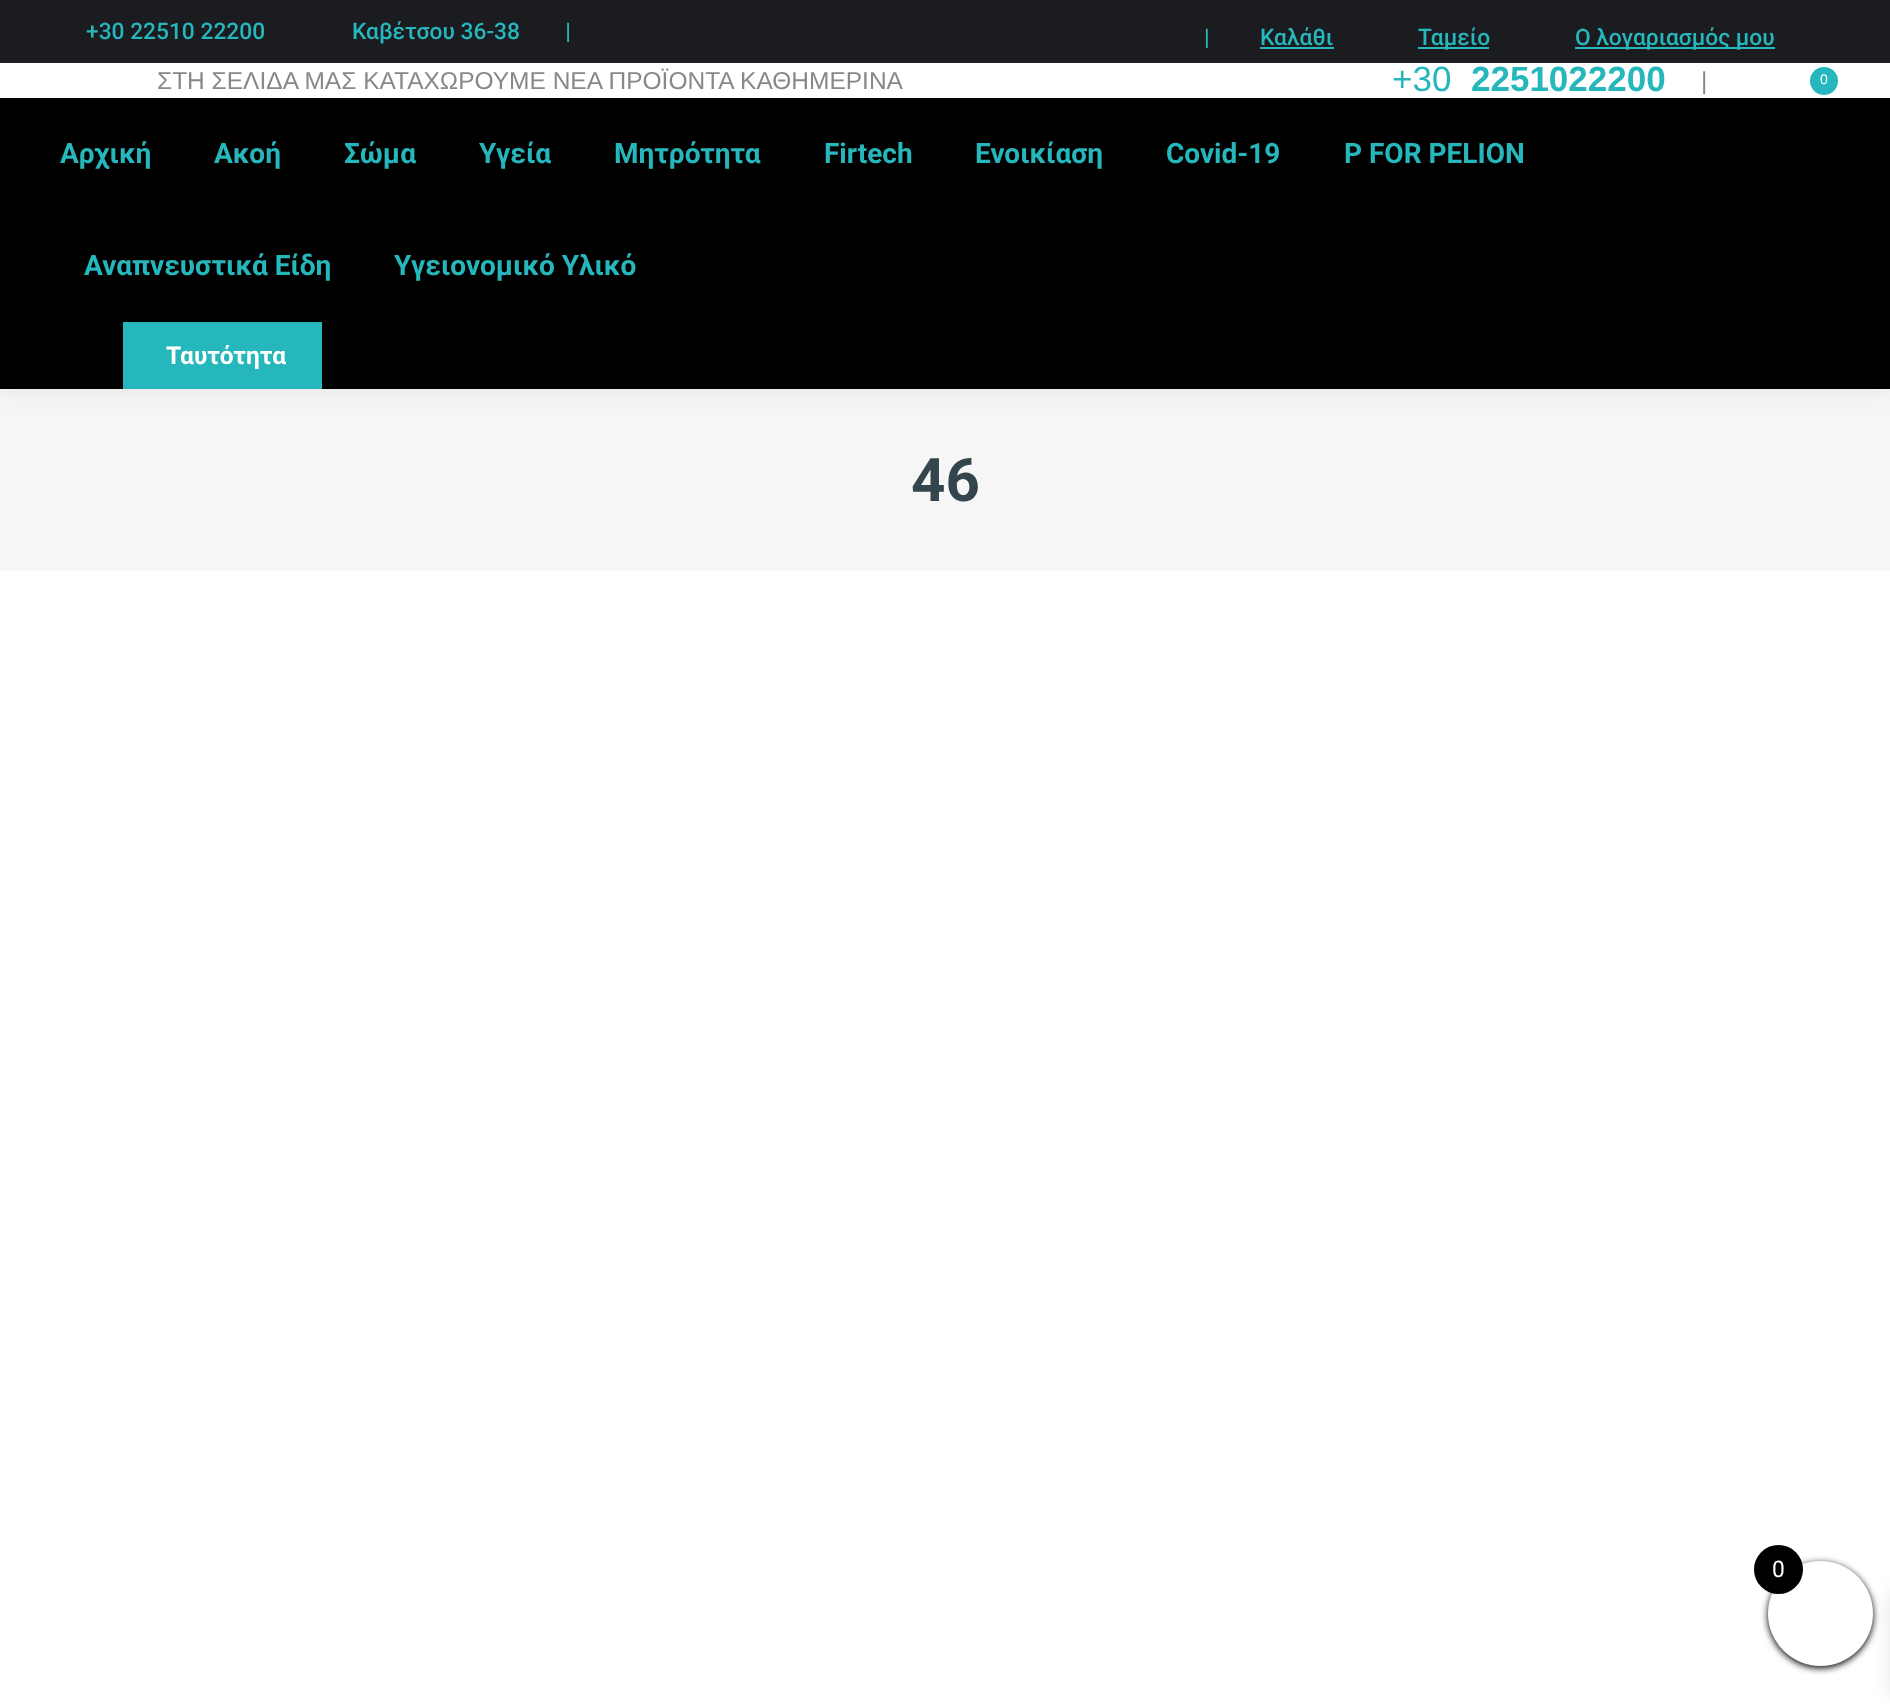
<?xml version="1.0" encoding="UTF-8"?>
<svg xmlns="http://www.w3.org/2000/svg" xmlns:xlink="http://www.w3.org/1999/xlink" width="1890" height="1704">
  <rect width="100%" height="100%" fill="#ffffff" />
  <rect y="389" width="1890" height="182" fill="#f6f6f6" />
  <rect x="-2" y="-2" width="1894" height="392" fill="#000000" fill-opacity="0.07" filter="blur(13px)" />
  <rect y="63" width="1890" height="35" fill="#ffffff" />
  <rect width="1890" height="61" fill="#1a1c20" />
  <rect x="1260" y="47" width="74" height="2" fill="#26b7bc" />
  <rect x="1418" y="47" width="71" height="2" fill="#26b7bc" />
  <rect x="1575" y="47" width="200" height="2" fill="#26b7bc" />
  <rect y="61" width="1890" height="2" fill="#1d1f22" />
  <circle cx="1824" cy="81" r="14" fill="#26b7bc" />
  <rect y="98" width="1890" height="291" fill="#000000" />
  <rect x="123" y="322" width="199" height="67" fill="#26b7bc" />
  <rect x="1768" y="1563" width="105" height="105" rx="52.5" fill="#000000" filter="blur(3.5px)" />
  <rect x="1890" y="1591" width="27" height="105" fill="#000000" fill-opacity="0.1" filter="blur(9px)" />
  <circle cx="1820.5" cy="1613.5" r="52.5" fill="#ffffff" />
  <circle cx="1778.5" cy="1569.5" r="24.5" fill="#000000" />
  <text x="86" y="39" style="font-family: Roboto; font-size: 22.75px; font-weight: 500; fill: #26b7bc">+30 22510 22200</text>
  <text x="352" y="39" style="font-family: Roboto; font-size: 22.75px; font-weight: 500; fill: #26b7bc" xml:space="preserve">Καβέτσου 36-38        |</text>
  <text x="1204" y="45" style="font-family: Roboto; font-size: 22.75px; font-weight: 500; fill: #26b7bc">|</text>
  <text x="1260" y="45" style="font-family: Roboto; font-size: 22.75px; font-weight: 500; fill: #26b7bc">Καλάθι</text>
  <text x="1418" y="45" style="font-family: Roboto; font-size: 22.75px; font-weight: 500; fill: #26b7bc">Ταμείο</text>
  <text x="1575" y="45" style="font-family: Roboto; font-size: 22.75px; font-weight: 500; fill: #26b7bc">Ο λογαριασμός μου</text>
  <text x="157" y="89" style="font-family: Liberation Sans; font-size: 24.5px; fill: #888888">ΣΤΗ ΣΕΛΙΔΑ ΜΑΣ ΚΑΤΑΧΩΡΟΥΜΕ ΝΕΑ ΠΡΟΪΟΝΤΑ ΚΑΘΗΜΕΡΙΝΑ</text>
  <text x="1392" y="91" style="font-family: Liberation Sans; font-size: 35px; fill: #26b7bc">+30</text>
  <text x="1471" y="91" style="font-family: Liberation Sans; font-size: 35px; font-weight: bold; fill: #26b7bc">2251022200</text>
  <text x="1701" y="89" style="font-family: Liberation Sans; font-size: 24.5px; fill: #888888">|</text>
  <text x="1820" y="84" style="font-family: Liberation Sans; font-size: 14px; fill: #ffffff">0</text>
  <text x="60" y="163" style="font-family: Roboto; font-size: 28px; font-weight: bold; fill: #26b7bc">Αρχική</text>
  <text x="214" y="163" style="font-family: Roboto; font-size: 28px; font-weight: bold; fill: #26b7bc">Ακοή</text>
  <text x="344" y="163" style="font-family: Roboto; font-size: 28px; font-weight: bold; fill: #26b7bc">Σώμα</text>
  <text x="479" y="163" style="font-family: Roboto; font-size: 28px; font-weight: bold; fill: #26b7bc">Υγεία</text>
  <text x="614" y="163" style="font-family: Roboto; font-size: 28px; font-weight: bold; fill: #26b7bc">Μητρότητα</text>
  <text x="824" y="163" style="font-family: Roboto; font-size: 28px; font-weight: bold; fill: #26b7bc">Firtech</text>
  <text x="975" y="163" style="font-family: Roboto; font-size: 28px; font-weight: bold; fill: #26b7bc">Ενοικίαση</text>
  <text x="1166" y="163" style="font-family: Roboto; font-size: 28px; font-weight: bold; fill: #26b7bc">Covid-19</text>
  <text x="1344" y="163" style="font-family: Roboto; font-size: 28px; font-weight: bold; fill: #26b7bc">P FOR PELION</text>
  <text x="84" y="275" style="font-family: Roboto; font-size: 28px; font-weight: bold; fill: #26b7bc">Αναπνευστικά Είδη</text>
  <text x="394" y="275" style="font-family: Roboto; font-size: 28px; font-weight: bold; fill: #26b7bc">Υγειονομικό Υλικό</text>
  <text x="166" y="364" style="font-family: Roboto; font-size: 24.5px; font-weight: bold; fill: #ffffff">Ταυτότητα</text>
  <text x="911" y="501" style="font-family: Roboto; font-size: 60px; font-weight: bold; fill: #34454e">46</text>
  <text x="1772" y="1577" style="font-family: Roboto; font-size: 22.75px; fill: #ffffff">0</text>
</svg>
